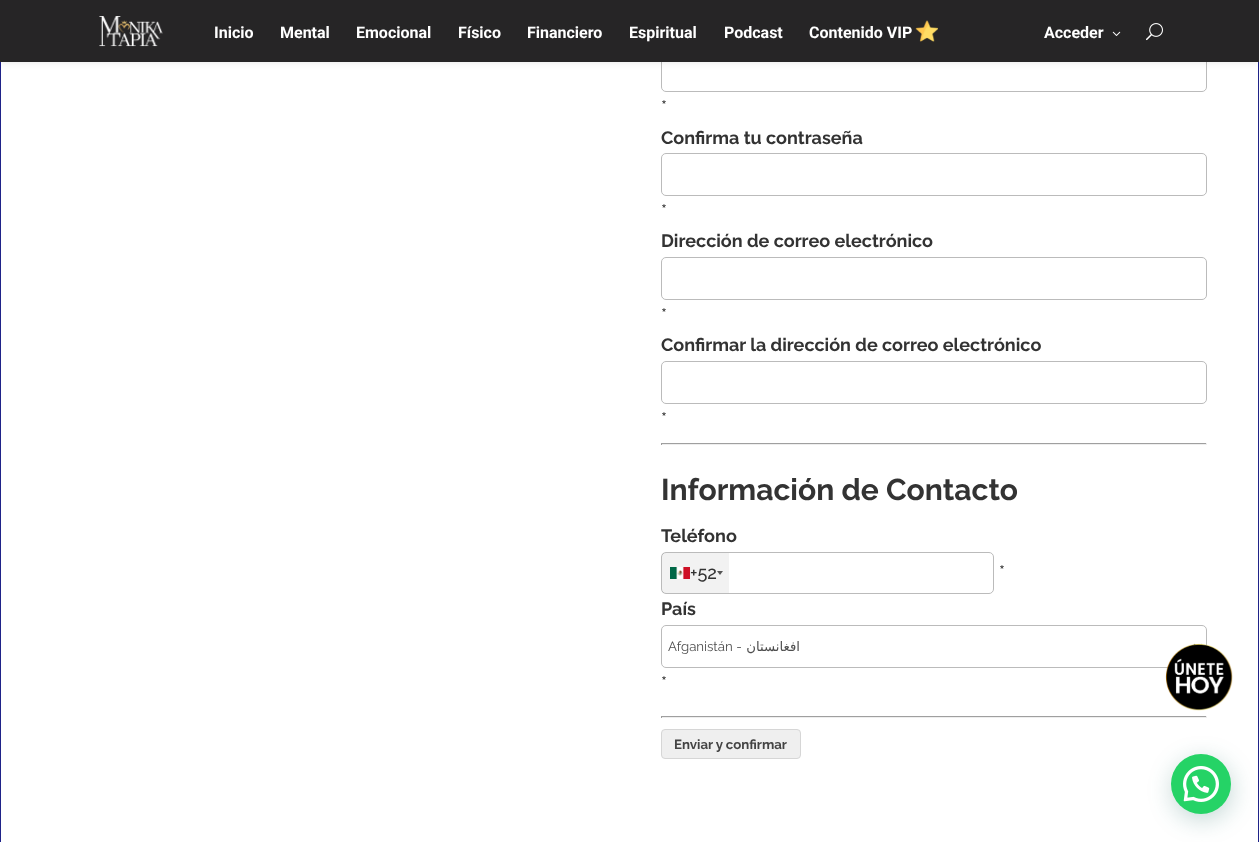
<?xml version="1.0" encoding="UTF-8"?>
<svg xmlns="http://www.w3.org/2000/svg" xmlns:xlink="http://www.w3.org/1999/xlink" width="1259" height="842">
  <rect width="100%" height="100%" fill="#ffffff" />
  <rect x="0.5" y="-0.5" width="1258" height="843" fill="none" stroke="#1f2389" />
  <rect x="661.5" y="49.5" width="545" height="42" rx="4.5" fill="none" stroke="#bbbbbb" />
  <rect width="1259" height="62" fill="#000000" fill-opacity="0.1" filter="blur(3.5px)" />
  <rect width="1259" height="62" fill="#262526" />
  <image x="99" y="16" width="64" height="31" xlink:href="image1.png" />
  <image x="915" y="20" width="23" height="22" xlink:href="image2.png" />
  <image x="1112" y="31" width="9" height="5" xlink:href="image3.png" />
  <image x="1146" y="23" width="17" height="18" xlink:href="image4.png" />
  <rect x="661.5" y="153.5" width="545" height="42" rx="4.5" fill="none" stroke="#bbbbbb" />
  <rect x="661.5" y="257.5" width="545" height="42" rx="4.5" fill="none" stroke="#bbbbbb" />
  <rect x="661.5" y="361.5" width="545" height="42" rx="4.5" fill="none" stroke="#bbbbbb" />
  <rect x="661" y="443" width="546" height="1" fill="#9f9f9f" />
  <rect x="1206" y="443" width="1" height="2" fill="#eeeeee" />
  <rect x="661" y="444" width="546" height="1" fill="#eeeeee" />
  <rect x="661" y="443" width="1" height="2" fill="#9f9f9f" />
  <rect x="661.5" y="552.5" width="332" height="41" rx="4.5" fill="none" stroke="#bbbbbb" />
  <rect x="662" y="553" width="67" height="40" fill="#000000" fill-opacity="0.05" />
  <rect x="670" y="567" width="20" height="12" fill="#888888" filter="blur(0.5px)" />
  <image x="670" y="567" width="20" height="12" xlink:href="image5.png" />
  <path d="M 717 571 h 6 l -3 4 z" fill="#555555" />
  <rect x="661.5" y="625.5" width="545" height="42" rx="4.5" fill="none" stroke="#bbbbbb" />
  <path d="M 1194 644.5 l 4 4 l 4 -4" fill="none" stroke="#4e4e4e" stroke-width="2" />
  <rect x="661" y="716" width="546" height="1" fill="#9f9f9f" />
  <rect x="1206" y="716" width="1" height="2" fill="#eeeeee" />
  <rect x="661" y="717" width="546" height="1" fill="#eeeeee" />
  <rect x="661" y="716" width="1" height="2" fill="#9f9f9f" />
  <rect x="661.5" y="729.5" width="139" height="29" rx="3.5" fill="#efefef" stroke="#d6d6d6" />
  <image x="1165" y="643" width="68" height="68" xlink:href="image6.png" />
  <rect x="1172" y="760" width="60" height="60" rx="30" fill="#075e54" fill-opacity="0.24" filter="blur(12px)" />
  <circle cx="1201" cy="784" r="30" fill="#25d366" />
  <image x="1183" y="766" width="36" height="36" xlink:href="image7.png" />
  <text x="214" y="38" style="font-family: Roboto; font-size: 16px; font-weight: bold; fill: #ffffff">Inicio</text>
  <text x="280" y="38" style="font-family: Roboto; font-size: 16px; font-weight: bold; fill: #ffffff">Mental</text>
  <text x="356" y="38" style="font-family: Roboto; font-size: 16px; font-weight: bold; fill: #ffffff">Emocional</text>
  <text x="458" y="38" style="font-family: Roboto; font-size: 16px; font-weight: bold; fill: #ffffff">Físico</text>
  <text x="527" y="38" style="font-family: Roboto; font-size: 16px; font-weight: bold; fill: #ffffff">Financiero</text>
  <text x="629" y="38" style="font-family: Roboto; font-size: 16px; font-weight: bold; fill: #ffffff">Espiritual</text>
  <text x="724" y="38" style="font-family: Roboto; font-size: 16px; font-weight: bold; fill: #ffffff">Podcast</text>
  <text x="809" y="38" style="font-family: Roboto; font-size: 16px; font-weight: bold; fill: #ffffff">Contenido VIP</text>
  <text x="1044" y="38" style="font-family: Roboto; font-size: 16px; font-weight: bold; fill: #ffffff">Acceder</text>
  <text x="661" y="113" style="font-family: Raleway; font-size: 18px; font-weight: 500; fill: #333333">*</text>
  <text x="661" y="144" style="font-family: Raleway; font-size: 18px; font-weight: bold; fill: #333333">Confirma tu contraseña</text>
  <text x="661" y="217" style="font-family: Raleway; font-size: 18px; font-weight: 500; fill: #333333">*</text>
  <text x="661" y="247" style="font-family: Raleway; font-size: 18px; font-weight: bold; fill: #333333">Dirección de correo electrónico</text>
  <text x="661" y="321" style="font-family: Raleway; font-size: 18px; font-weight: 500; fill: #333333">*</text>
  <text x="661" y="351" style="font-family: Raleway; font-size: 18px; font-weight: bold; fill: #333333">Confirmar la dirección de correo electrónico</text>
  <text x="661" y="425" style="font-family: Raleway; font-size: 18px; font-weight: 500; fill: #333333">*</text>
  <text x="661" y="500" style="font-family: Raleway; font-size: 30px; font-weight: bold; fill: #333333">Información de Contacto</text>
  <text x="661" y="542" style="font-family: Raleway; font-size: 18px; font-weight: bold; fill: #333333">Teléfono</text>
  <text x="999" y="578" style="font-family: Raleway; font-size: 18px; font-weight: 500; fill: #333333">*</text>
  <text x="690" y="579" style="font-family: Raleway; font-size: 18px; font-weight: 500; fill: #333333">+52</text>
  <text x="661" y="615" style="font-family: Raleway; font-size: 18px; font-weight: bold; fill: #333333">País</text>
  <text x="668" y="651" style="font-family: Raleway; font-size: 13.25px; fill: #4e4e4e">Afganistán -</text>
  <text x="800" y="651" style="font-family: DejaVu Sans; font-size: 13.25px; direction: rtl; fill: #4e4e4e">افغانستان</text>
  <text x="661" y="689" style="font-family: Raleway; font-size: 18px; font-weight: 500; fill: #333333">*</text>
  <text x="674" y="749" style="font-family: Raleway; font-size: 13.25px; font-weight: bold; fill: #444444">Enviar y confirmar</text>
</svg>
